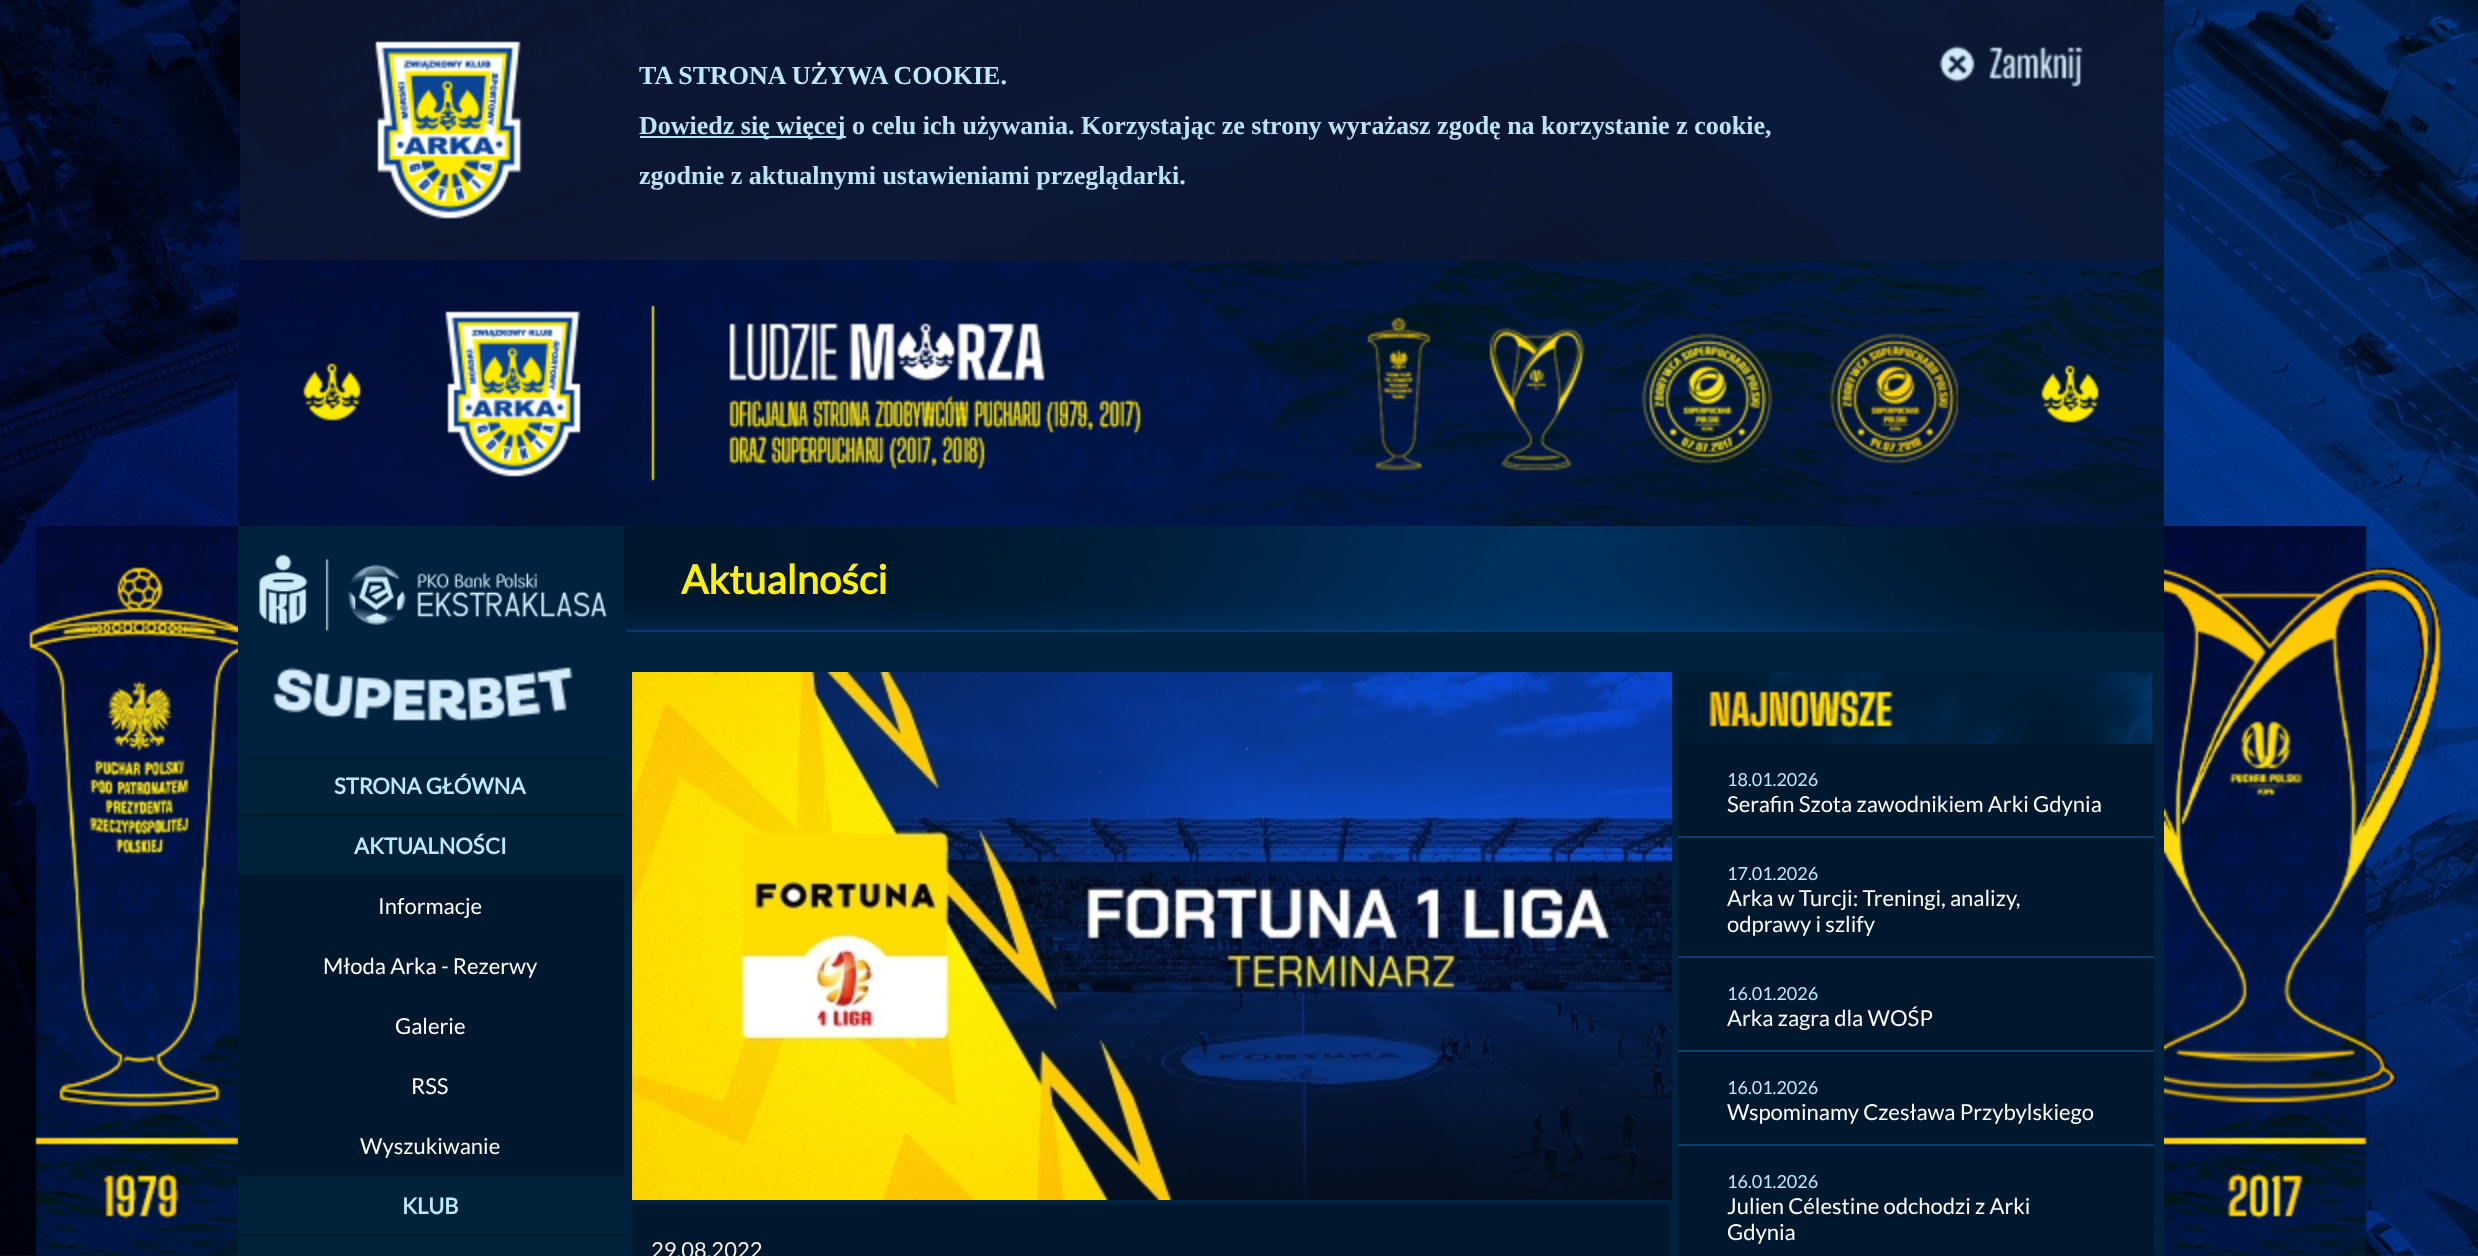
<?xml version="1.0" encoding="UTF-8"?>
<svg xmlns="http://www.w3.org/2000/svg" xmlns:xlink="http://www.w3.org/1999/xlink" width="2478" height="1256">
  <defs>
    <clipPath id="clip1"><rect x="238" y="756" width="386" height="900" rx="8" /></clipPath>
  </defs>
  <rect width="100%" height="100%" fill="#ffffff" />
  <image x="0" y="0" width="2478" height="1256" xlink:href="image1.png" />
  <image x="240" y="0" width="1924" height="260" xlink:href="image2.png" />
  <rect x="640" y="136" width="206" height="2" fill="#b9e4f3" />
  <image x="1939" y="45" width="144" height="42" xlink:href="image3.png" />
  <image x="238" y="260" width="1926" height="266" xlink:href="image4.png" />
  <rect x="238" y="526" width="1926" height="730" fill="#00223e" />
  <image x="29" y="526" width="209" height="730" xlink:href="image5.png" />
  <image x="259" y="554" width="348" height="77" xlink:href="image6.png" />
  <image x="273" y="667" width="300" height="54" xlink:href="image7.png" />
  <path d="M 246 756 h 370 c 4.5 0 8 3.5 8 8 v 52 h -386 v -52 c 0 -4.5 3.5 -8 8 -8 z" fill="#00233a" />
  <g clip-path="url(#clip1)">
    <rect x="238" y="756" width="386" height="2" fill="#001f34" />
  </g>
  <rect x="238" y="814" width="386" height="2" fill="#00182e" />
  <rect x="238" y="818" width="386" height="56" fill="#00233a" />
  <rect x="238" y="816" width="386" height="2" fill="#002034" />
  <rect x="238" y="874" width="386" height="60" fill="#00182e" />
  <rect x="238" y="934" width="386" height="2" fill="#00172c" />
  <rect x="238" y="936" width="386" height="58" fill="#00182e" />
  <rect x="238" y="994" width="386" height="2" fill="#00172c" />
  <rect x="238" y="996" width="386" height="58" fill="#00182e" />
  <rect x="238" y="1054" width="386" height="2" fill="#00172c" />
  <rect x="238" y="1056" width="386" height="58" fill="#00182e" />
  <rect x="238" y="1114" width="386" height="2" fill="#00172c" />
  <rect x="238" y="1116" width="386" height="58" fill="#00182e" />
  <rect x="238" y="1174" width="386" height="2" fill="#00172c" />
  <rect x="238" y="1178" width="386" height="56" fill="#00233a" />
  <rect x="238" y="1176" width="386" height="2" fill="#002034" />
  <rect x="238" y="1234" width="386" height="2" fill="#00182e" />
  <rect x="238" y="1238" width="386" height="18" fill="#00233a" />
  <rect x="238" y="1236" width="386" height="2" fill="#002034" />
  <image x="624" y="526" width="1540" height="106" xlink:href="image8.png" />
  <image x="1678" y="672" width="474" height="72" xlink:href="image9.png" />
  <rect x="1678" y="744" width="476" height="512" fill="#00182e" />
  <rect x="1678" y="836" width="476" height="2" fill="#0a3f72" />
  <rect x="1678" y="956" width="476" height="2" fill="#0a3f72" />
  <rect x="1678" y="1050" width="476" height="2" fill="#0a3f72" />
  <rect x="1678" y="1144" width="476" height="2" fill="#0a3f72" />
  <image x="632" y="672" width="1040" height="528" xlink:href="image10.png" />
  <rect x="632" y="1204" width="1038" height="52" fill="#00182e" />
  <image x="2164" y="526" width="277" height="730" xlink:href="image11.png" />
  <text x="639" y="84" style="font-family: Liberation Serif; font-size: 26px; font-weight: bold; fill: #bee9f9">TA STRONA UŻYWA COOKIE.</text>
  <text x="639" y="134" style="font-family: Liberation Serif; font-size: 26px; font-weight: bold; fill: #b9e4f3">Dowiedz się więcej o celu ich używania. Korzystając ze strony wyrażasz zgodę na korzystanie z cookie,</text>
  <text x="639" y="184" style="font-family: Liberation Serif; font-size: 26px; font-weight: bold; fill: #b9e4f3">zgodnie z aktualnymi ustawieniami przeglądarki.</text>
  <text x="334" y="794" style="font-family: Lato; font-size: 22px; font-weight: bold; fill: #bde9ff">STRONA GŁÓWNA</text>
  <text x="354" y="854" style="font-family: Lato; font-size: 22px; font-weight: bold; fill: #bde9ff">AKTUALNOŚCI</text>
  <text x="378" y="914" style="font-family: Lato; font-size: 22px; fill: #ffffff">Informacje</text>
  <text x="323" y="974" style="font-family: Lato; font-size: 22px; fill: #ffffff">Młoda Arka - Rezerwy</text>
  <text x="395" y="1034" style="font-family: Lato; font-size: 22px; fill: #ffffff">Galerie</text>
  <text x="411" y="1094" style="font-family: Lato; font-size: 22px; fill: #ffffff">RSS</text>
  <text x="360" y="1154" style="font-family: Lato; font-size: 22px; fill: #ffffff">Wyszukiwanie</text>
  <text x="402" y="1214" style="font-family: Lato; font-size: 22px; font-weight: bold; fill: #bde9ff">KLUB</text>
  <text x="681" y="594" style="font-family: Lato; font-size: 40px; font-weight: bold; fill: #fff100">Aktualności</text>
  <text x="1727" y="786" style="font-family: Lato; font-size: 18px; fill: #bde9ff">18.01.2026</text>
  <text x="1727" y="812" style="font-family: Lato; font-size: 22px; fill: #ffffff">Serafin Szota zawodnikiem Arki Gdynia</text>
  <text x="1727" y="880" style="font-family: Lato; font-size: 18px; fill: #bde9ff">17.01.2026</text>
  <text x="1727" y="906" style="font-family: Lato; font-size: 22px; fill: #ffffff">Arka w Turcji: Treningi, analizy,</text>
  <text x="1727" y="932" style="font-family: Lato; font-size: 22px; fill: #ffffff">odprawy i szlify</text>
  <text x="1727" y="1000" style="font-family: Lato; font-size: 18px; fill: #bde9ff">16.01.2026</text>
  <text x="1727" y="1026" style="font-family: Lato; font-size: 22px; fill: #ffffff">Arka zagra dla WOŚP</text>
  <text x="1727" y="1094" style="font-family: Lato; font-size: 18px; fill: #bde9ff">16.01.2026</text>
  <text x="1727" y="1120" style="font-family: Lato; font-size: 22px; fill: #ffffff">Wspominamy Czesława Przybylskiego</text>
  <text x="1727" y="1188" style="font-family: Lato; font-size: 18px; fill: #bde9ff">16.01.2026</text>
  <text x="1727" y="1214" style="font-family: Lato; font-size: 22px; fill: #ffffff">Julien Célestine odchodzi z Arki</text>
  <text x="1727" y="1240" style="font-family: Lato; font-size: 22px; fill: #ffffff">Gdynia</text>
  <text x="651" y="1258" style="font-family: Lato; font-size: 22px; fill: #f3eee0">29.08.2022</text>
</svg>
